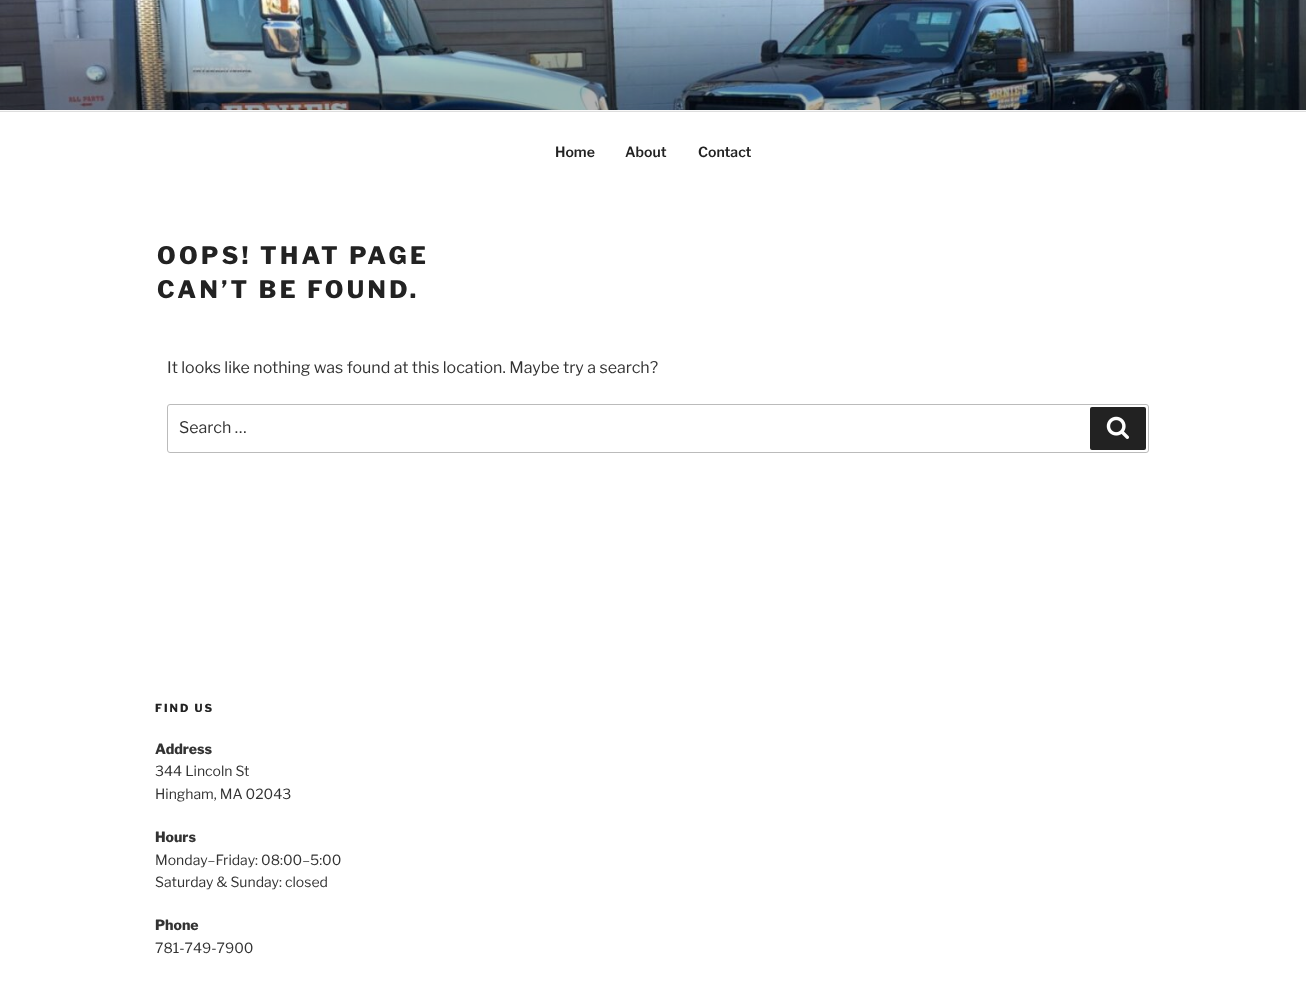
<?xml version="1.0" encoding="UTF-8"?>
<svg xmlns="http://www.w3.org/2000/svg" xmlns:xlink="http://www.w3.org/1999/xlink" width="1306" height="988">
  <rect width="100%" height="100%" fill="#ffffff" />
  <rect y="110" width="1306" height="1" fill="#f9f9f9" />
  <image x="0" y="0" width="1306" height="110" xlink:href="image1.png" />
  <rect y="111" width="1306" height="1" fill="#dddddd" />
  <rect x="167.5" y="404.5" width="981" height="48" rx="2.5" fill="none" stroke="#bbbbbb" />
  <rect x="1090" y="407" width="56" height="43" rx="2" fill="#222222" />
  <image x="1106" y="416" width="23" height="23" xlink:href="image2.png" />
  <text x="555" y="157" style="font-family: 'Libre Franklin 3'; font-size: 14px; font-weight: 100; fill: #222222">Home</text>
  <text x="625" y="157" style="font-family: 'Libre Franklin 3'; font-size: 14px; font-weight: 100; fill: #222222">About</text>
  <text x="698" y="157" style="font-family: 'Libre Franklin 3'; font-size: 14px; font-weight: 100; fill: #222222">Contact</text>
  <text x="157" y="264" style="font-family: Libre Franklin; font-size: 24px; font-weight: 100; letter-spacing: 3.4px; fill: #222222">OOPS! THAT PAGE</text>
  <text x="157" y="298" style="font-family: Libre Franklin; font-size: 24px; font-weight: 100; letter-spacing: 3.4px; fill: #222222">CAN’T BE FOUND.</text>
  <text x="167" y="373" style="font-family: 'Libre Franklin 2'; font-size: 16px; font-weight: 100; fill: #333333">It looks like nothing was found at this location. Maybe try a search?</text>
  <text x="179" y="433" style="font-family: 'Libre Franklin 2'; font-size: 16px; font-weight: 100; fill: #333333">Search …</text>
  <text x="155" y="712" style="font-family: Libre Franklin; font-size: 11px; font-weight: 100; letter-spacing: 2px; fill: #222222">FIND US</text>
  <text x="155" y="754" style="font-family: Libre Franklin; font-size: 14px; font-weight: 100; fill: #333333">Address</text>
  <text x="155" y="776" style="font-family: 'Libre Franklin 2'; font-size: 14px; font-weight: 100; fill: #333333">344 Lincoln St</text>
  <text x="155" y="799" style="font-family: 'Libre Franklin 2'; font-size: 14px; font-weight: 100; fill: #333333">Hingham, MA 02043</text>
  <text x="155" y="842" style="font-family: Libre Franklin; font-size: 14px; font-weight: 100; fill: #333333">Hours</text>
  <text x="155" y="865" style="font-family: 'Libre Franklin 2'; font-size: 14px; font-weight: 100; fill: #333333">Monday–Friday: 08:00–5:00</text>
  <text x="155" y="887" style="font-family: 'Libre Franklin 2'; font-size: 14px; font-weight: 100; fill: #333333">Saturday &amp; Sunday: closed</text>
  <text x="155" y="930" style="font-family: Libre Franklin; font-size: 14px; font-weight: 100; fill: #333333">Phone</text>
  <text x="155" y="953" style="font-family: 'Libre Franklin 2'; font-size: 14px; font-weight: 100; fill: #333333">781-749-7900</text>
</svg>
